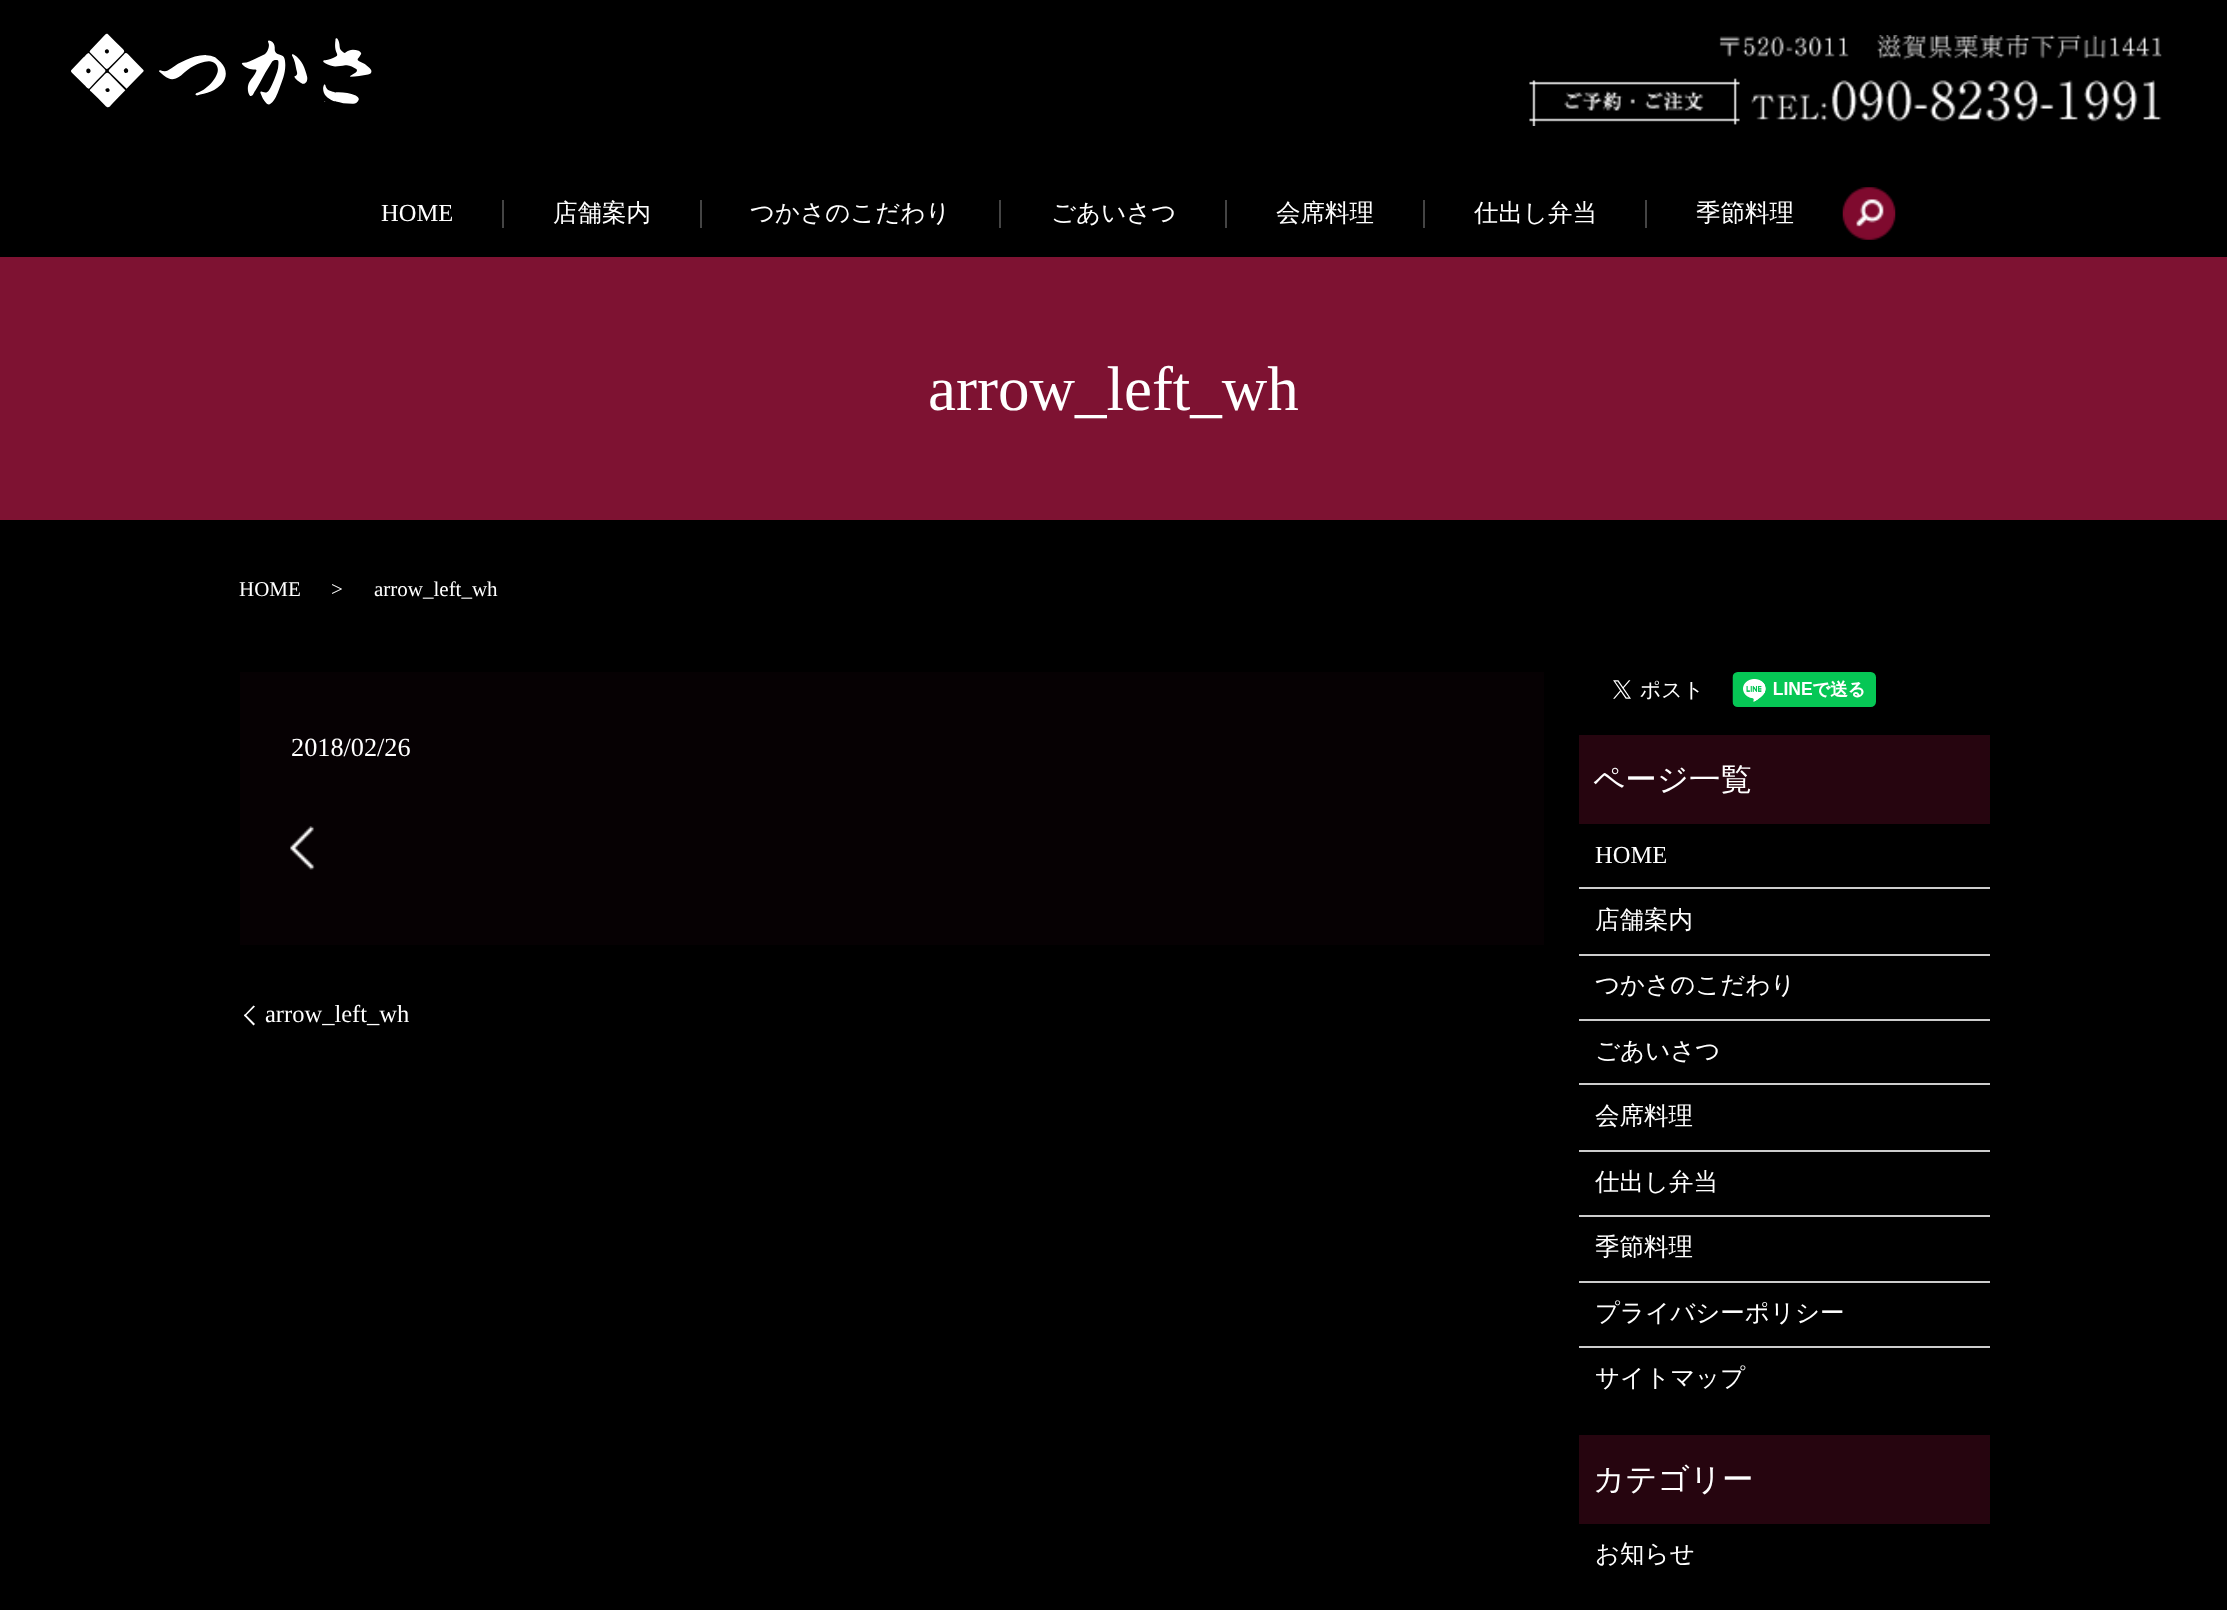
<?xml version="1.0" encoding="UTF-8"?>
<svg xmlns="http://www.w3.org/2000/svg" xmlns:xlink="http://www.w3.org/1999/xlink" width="2227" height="1610">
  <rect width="100%" height="100%" fill="#000000" />
  <image x="71" y="33" width="301" height="75" xlink:href="image1.png" />
  <image x="1529" y="35" width="633" height="91" xlink:href="image2.png" />
  <rect x="502" y="200" width="2" height="28" fill="#444444" />
  <rect x="700" y="200" width="2" height="28" fill="#444444" />
  <rect x="999" y="200" width="2" height="28" fill="#444444" />
  <rect x="1225" y="200" width="2" height="28" fill="#444444" />
  <rect x="1423" y="200" width="2" height="28" fill="#444444" />
  <rect x="1645" y="200" width="2" height="28" fill="#444444" />
  <image x="1842" y="187" width="54" height="53" xlink:href="image3.png" />
  <rect y="257" width="2227" height="263" fill="#7e1232" />
  <rect x="240" y="672" width="1304" height="273" fill="#060103" />
  <image x="290" y="826" width="25" height="44" xlink:href="image4.png" />
  <path d="M 244 1015.5 l 9.5 -10 l 1.5 1 l -10 10 z" fill="#ffffff" />
  <path d="M 253.5 1025.5 l -9.5 -10 l 1 -1.5 l 10 10 z" fill="#ffffff" />
  <image x="1613" y="680" width="86" height="20" xlink:href="image5.png" />
  <image x="1732" y="672" width="145" height="35" xlink:href="image6.png" />
  <rect x="1579" y="735" width="411" height="89" fill="#26050f" />
  <rect x="1579" y="887" width="411" height="2" fill="#cccccc" />
  <rect x="1579" y="954" width="411" height="2" fill="#cccccc" />
  <rect x="1579" y="1019" width="411" height="2" fill="#cccccc" />
  <rect x="1579" y="1083" width="411" height="2" fill="#cccccc" />
  <rect x="1579" y="1150" width="411" height="2" fill="#cccccc" />
  <rect x="1579" y="1215" width="411" height="2" fill="#cccccc" />
  <rect x="1579" y="1281" width="411" height="2" fill="#cccccc" />
  <rect x="1579" y="1346" width="411" height="2" fill="#cccccc" />
  <rect x="1579" y="1435" width="411" height="89" fill="#26050f" />
  <text x="381" y="221" style="font-family: Liberation Serif; font-size: 24.5px; fill: #ffffff">HOME</text>
  <text x="553" y="221" style="font-family: WenQuanYi Zen Hei; font-size: 24.5px; font-weight: 500; fill: #ffffff">店舗案内</text>
  <text x="750" y="221" style="font-family: WenQuanYi Zen Hei; font-size: 24.5px; font-weight: 500; fill: #ffffff">つかさのこだわり</text>
  <text x="1051" y="221" style="font-family: WenQuanYi Zen Hei; font-size: 24.5px; font-weight: 500; fill: #ffffff">ごあいさつ</text>
  <text x="1276" y="221" style="font-family: WenQuanYi Zen Hei; font-size: 24.5px; font-weight: 500; fill: #ffffff">会席料理</text>
  <text x="1474" y="221" style="font-family: WenQuanYi Zen Hei; font-size: 24.5px; font-weight: 500; fill: #ffffff">仕出し弁当</text>
  <text x="1696" y="221" style="font-family: WenQuanYi Zen Hei; font-size: 24.5px; font-weight: 500; fill: #ffffff">季節料理</text>
  <text x="928" y="410" style="font-family: Liberation Serif; font-size: 63px; fill: #ffffff">arrow_left_wh</text>
  <text x="239" y="596" style="font-family: Liberation Serif; font-size: 21px; fill: #ffffff">HOME</text>
  <text x="331" y="596" style="font-family: Liberation Serif; font-size: 21px; fill: #ffffff">&gt;</text>
  <text x="374" y="596" style="font-family: Liberation Serif; font-size: 21px; fill: #ffffff">arrow_left_wh</text>
  <text x="291" y="756" style="font-family: Liberation Serif; font-size: 26.25px; fill: #ffffff">2018/02/26</text>
  <text x="265" y="1022" style="font-family: Liberation Serif; font-size: 24.5px; fill: #ffffff">arrow_left_wh</text>
  <text x="1593" y="790" style="font-family: WenQuanYi Zen Hei; font-size: 31.5px; font-weight: 500; fill: #ffffff">ページ一覧</text>
  <text x="1595" y="863" style="font-family: Liberation Serif; font-size: 24.5px; fill: #ffffff">HOME</text>
  <text x="1595" y="928" style="font-family: WenQuanYi Zen Hei; font-size: 24.5px; font-weight: 500; fill: #ffffff">店舗案内</text>
  <text x="1595" y="993" style="font-family: WenQuanYi Zen Hei; font-size: 24.5px; font-weight: 500; fill: #ffffff">つかさのこだわり</text>
  <text x="1595" y="1059" style="font-family: WenQuanYi Zen Hei; font-size: 24.5px; font-weight: 500; fill: #ffffff">ごあいさつ</text>
  <text x="1595" y="1124" style="font-family: WenQuanYi Zen Hei; font-size: 24.5px; font-weight: 500; fill: #ffffff">会席料理</text>
  <text x="1595" y="1190" style="font-family: WenQuanYi Zen Hei; font-size: 24.5px; font-weight: 500; fill: #ffffff">仕出し弁当</text>
  <text x="1595" y="1255" style="font-family: WenQuanYi Zen Hei; font-size: 24.5px; font-weight: 500; fill: #ffffff">季節料理</text>
  <text x="1595" y="1321" style="font-family: WenQuanYi Zen Hei; font-size: 24.5px; font-weight: 500; fill: #ffffff">プライバシーポリシー</text>
  <text x="1595" y="1386" style="font-family: WenQuanYi Zen Hei; font-size: 24.5px; font-weight: 500; fill: #ffffff">サイトマップ</text>
  <text x="1593" y="1490" style="font-family: WenQuanYi Zen Hei; font-size: 31.5px; font-weight: 500; fill: #ffffff">カテゴリー</text>
  <text x="1595" y="1562" style="font-family: WenQuanYi Zen Hei; font-size: 24.5px; font-weight: 500; fill: #ffffff">お知らせ</text>
</svg>
